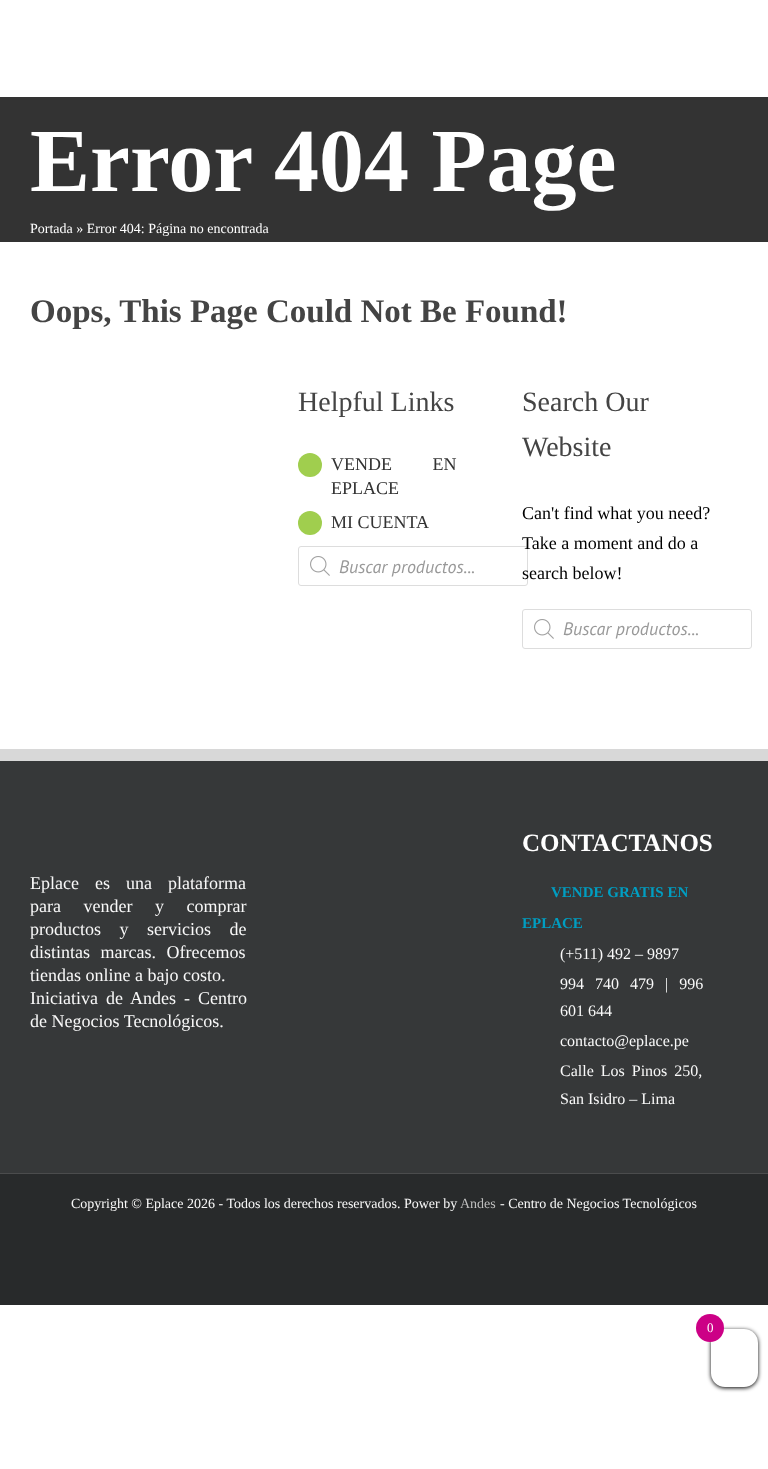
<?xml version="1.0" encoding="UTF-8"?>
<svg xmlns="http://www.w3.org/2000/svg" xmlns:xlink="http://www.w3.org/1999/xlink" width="768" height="1469">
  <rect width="100%" height="100%" fill="#ffffff" />
  <rect y="97" width="768" height="145" fill="#333333" />
  <circle cx="310" cy="465" r="12" fill="#a0ce4e" />
  <circle cx="310" cy="523" r="12" fill="#a0ce4e" />
  <rect x="298.5" y="546.5" width="229" height="39" rx="2.5" fill="none" stroke="#dddddd" />
  <image x="310" y="556" width="20" height="20" xlink:href="image1.png" />
  <rect x="522.5" y="609.5" width="229" height="39" rx="2.5" fill="none" stroke="#dddddd" />
  <image x="534" y="619" width="20" height="20" xlink:href="image1.png" />
  <rect y="761" width="768" height="412" fill="#363839" />
  <rect y="749" width="768" height="12" fill="#d8d8d8" />
  <rect y="1174" width="768" height="131" fill="#282a2b" />
  <rect y="1173" width="768" height="1" fill="#4b4c4d" />
  <rect x="711" y="1330" width="47" height="58" rx="14" fill="#000000" filter="blur(2px)" />
  <rect x="711" y="1329" width="47" height="58" rx="14" fill="#ffffff" />
  <circle cx="710" cy="1328" r="14" fill="#cc0086" />
  <text x="30" y="191" style="font-family: Liberation Serif; font-size: 90px; font-weight: bold; fill: #ffffff">Error 404 Page</text>
  <text x="30" y="233" style="font-family: Liberation Serif; font-size: 14px; fill: #ffffff">Portada » Error 404: Página no encontrada</text>
  <text x="30" y="322" style="font-family: Liberation Serif; font-size: 33px; font-weight: bold; fill: #444444">Oops, This Page Could Not Be Found!</text>
  <text x="298" y="411" style="font-family: Liberation Serif; font-size: 28px; fill: #444444">Helpful Links</text>
  <text x="331" y="470" word-spacing="36" style="font-family: Liberation Serif; font-size: 18px; fill: #333333">VENDE EN</text>
  <text x="331" y="494" style="font-family: Liberation Serif; font-size: 18px; fill: #333333">EPLACE</text>
  <text x="331" y="528" style="font-family: Liberation Serif; font-size: 18px; fill: #333333">MI CUENTA</text>
  <text x="339" y="573" style="font-family: PT Sans; font-size: 18px; font-style: italic; fill: #999999">Buscar productos...</text>
  <text x="522" y="411" style="font-family: Liberation Serif; font-size: 28px; fill: #444444">Search Our</text>
  <text x="522" y="456" style="font-family: Liberation Serif; font-size: 28px; fill: #444444">Website</text>
  <text x="522" y="519" style="font-family: Liberation Serif; font-size: 18px; fill: #000000">Can't find what you need?</text>
  <text x="522" y="549" style="font-family: Liberation Serif; font-size: 18px; fill: #000000">Take a moment and do a</text>
  <text x="522" y="579" style="font-family: Liberation Serif; font-size: 18px; fill: #000000">search below!</text>
  <text x="563" y="635" style="font-family: PT Sans; font-size: 18px; font-style: italic; fill: #999999">Buscar productos...</text>
  <text x="30" y="889" word-spacing="11.5" style="font-family: Liberation Serif; font-size: 18px; fill: #f9f9f9">Eplace es una plataforma</text>
  <text x="30" y="912" word-spacing="18" style="font-family: Liberation Serif; font-size: 18px; fill: #f9f9f9">para vender y comprar</text>
  <text x="30" y="935" word-spacing="14" style="font-family: Liberation Serif; font-size: 18px; fill: #f9f9f9">productos y servicios de</text>
  <text x="30" y="958" word-spacing="6" style="font-family: Liberation Serif; font-size: 18px; fill: #f9f9f9">distintas marcas. Ofrecemos</text>
  <text x="30" y="981" style="font-family: Liberation Serif; font-size: 18px; fill: #f9f9f9">tiendas online a bajo costo.</text>
  <text x="30" y="1004" word-spacing="3.5" style="font-family: Liberation Serif; font-size: 18px; fill: #f9f9f9">Iniciativa de Andes - Centro</text>
  <text x="30" y="1027" style="font-family: Liberation Serif; font-size: 18px; fill: #f9f9f9">de Negocios Tecnológicos.</text>
  <text x="522" y="851" style="font-family: Liberation Serif; font-size: 25px; font-weight: bold; fill: #ffffff">CONTACTANOS</text>
  <text x="551" y="897" style="font-family: Liberation Serif; font-size: 15px; font-weight: bold; fill: #009ec2">VENDE GRATIS EN</text>
  <text x="522" y="928" style="font-family: Liberation Serif; font-size: 15px; font-weight: bold; fill: #009ec2">EPLACE</text>
  <text x="560" y="959" style="font-family: Liberation Serif; font-size: 16px; fill: #f9f9f9">(+511) 492 – 9897</text>
  <text x="560" y="989" word-spacing="7" style="font-family: Liberation Serif; font-size: 16px; fill: #f9f9f9">994 740 479 | 996</text>
  <text x="560" y="1016" style="font-family: Liberation Serif; font-size: 16px; fill: #f9f9f9">601 644</text>
  <text x="560" y="1046" style="font-family: Liberation Serif; font-size: 16px; fill: #f9f9f9">contacto@eplace.pe</text>
  <text x="560" y="1076" word-spacing="3" style="font-family: Liberation Serif; font-size: 16px; fill: #f9f9f9">Calle Los Pinos 250,</text>
  <text x="560" y="1104" style="font-family: Liberation Serif; font-size: 16px; fill: #f9f9f9">San Isidro – Lima</text>
  <text x="71" y="1208" style="font-family: Liberation Serif; font-size: 14px; fill: #f9f9f9">Copyright © Eplace 2026 - Todos los derechos reservados. Power by</text>
  <text x="460" y="1208" style="font-family: Liberation Serif; font-size: 14px; fill: #bfbfbf">Andes</text>
  <text x="500" y="1208" style="font-family: Liberation Serif; font-size: 14px; fill: #f9f9f9">- Centro de Negocios Tecnológicos</text>
  <text x="707" y="1332" style="font-family: Liberation Serif; font-size: 13px; fill: #ffffff">0</text>
</svg>
